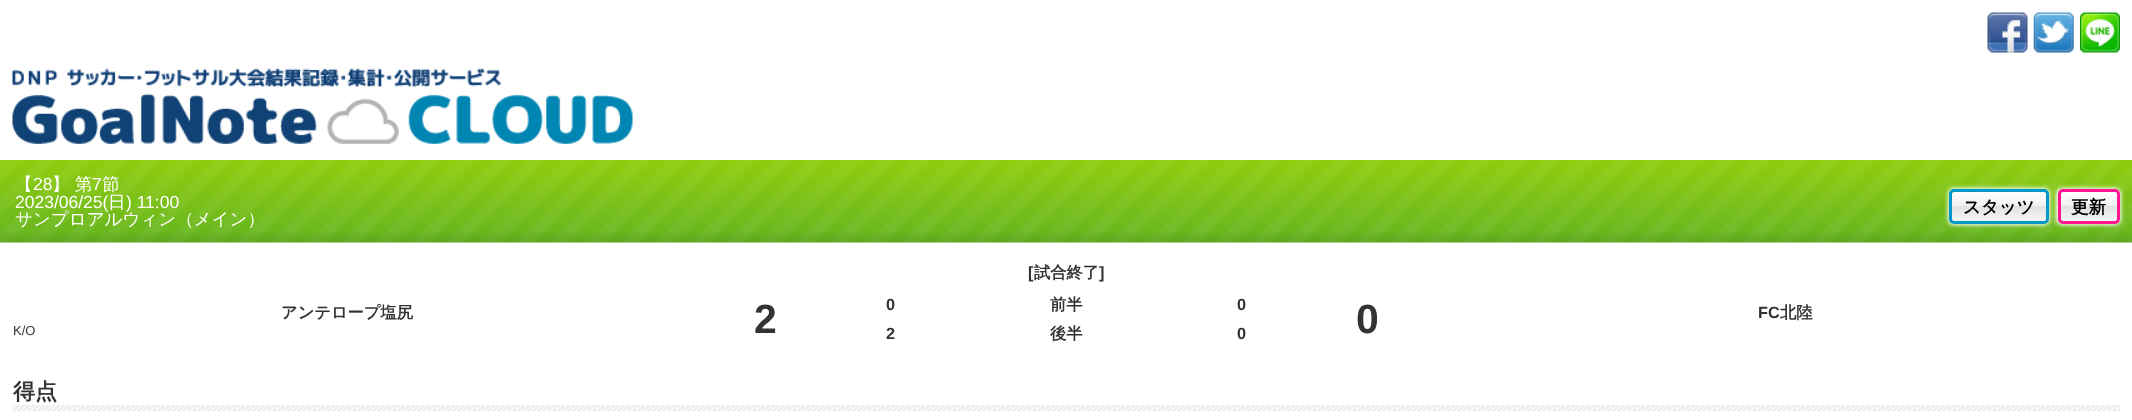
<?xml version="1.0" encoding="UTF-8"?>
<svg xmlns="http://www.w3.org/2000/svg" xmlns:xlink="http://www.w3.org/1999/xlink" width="2132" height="420">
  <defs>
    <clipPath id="clip1"><rect x="1949" y="189" width="100" height="35" rx="5" /></clipPath>
    <linearGradient id="g1" gradientUnits="userSpaceOnUse" x1="1999" y1="191" x2="1999" y2="221"><stop offset="0" stop-color="#ffffff" /><stop offset="0.5" stop-color="#f1f1f1" /><stop offset="0.51" stop-color="#e1e1e1" /><stop offset="1" stop-color="#f6f6f6" /></linearGradient>
    <clipPath id="clip2"><rect x="2058" y="189" width="62" height="35" rx="5" /></clipPath>
    <linearGradient id="g2" gradientUnits="userSpaceOnUse" x1="2089" y1="191" x2="2089" y2="221"><stop offset="0" stop-color="#ffffff" /><stop offset="0.5" stop-color="#f1f1f1" /><stop offset="0.51" stop-color="#e1e1e1" /><stop offset="1" stop-color="#f6f6f6" /></linearGradient>
  </defs>
  <rect width="100%" height="100%" fill="#ffffff" />
  <image x="1987" y="12" width="41" height="41" xlink:href="image1.png" />
  <image x="2033" y="12" width="41" height="41" xlink:href="image2.png" />
  <image x="2080" y="12" width="40" height="41" xlink:href="image3.png" />
  <image x="12" y="68" width="621" height="76" xlink:href="image4.png" />
  <image x="0" y="160" width="2132" height="83" xlink:href="image5.png" />
  <rect x="1948" y="188" width="102" height="37" rx="6" fill="#ffffff" filter="blur(2px)" />
  <g clip-path="url(#clip1)">
    <rect x="1949" y="191" width="100" height="30" fill="url(#g1)" />
  </g>
  <rect x="1950.5" y="190.5" width="97" height="32" rx="3.5" fill="none" stroke="#0098cb" stroke-width="3" />
  <rect x="2056" y="188" width="65" height="37" rx="6" fill="#ffffff" filter="blur(2px)" />
  <g clip-path="url(#clip2)">
    <rect x="2058" y="191" width="62" height="30" fill="url(#g2)" />
  </g>
  <rect x="2059.5" y="190.5" width="59" height="32" rx="3.5" fill="none" stroke="#ff1493" stroke-width="3" />
  <image x="12" y="405" width="2108" height="7" xlink:href="image6.png" />
  <text x="15" y="190" style="font-family: WenQuanYi Zen Hei; font-size: 17.5px; font-weight: 500; fill: #ffffff">【</text>
  <text x="33" y="190" style="font-family: Liberation Sans; font-size: 17.5px; fill: #ffffff">28</text>
  <text x="52" y="190" style="font-family: WenQuanYi Zen Hei; font-size: 17.5px; font-weight: 500; fill: #ffffff">】 第</text>
  <text x="92" y="190" style="font-family: Liberation Sans; font-size: 17.5px; fill: #ffffff">7</text>
  <text x="102" y="190" style="font-family: WenQuanYi Zen Hei; font-size: 17.5px; font-weight: 500; fill: #ffffff">節</text>
  <text x="15" y="208" style="font-family: Liberation Sans; font-size: 17.5px; fill: #ffffff">2023/06/25(</text>
  <text x="108" y="208" style="font-family: WenQuanYi Zen Hei; font-size: 17.5px; font-weight: 500; fill: #ffffff">日</text>
  <text x="126" y="208" style="font-family: Liberation Sans; font-size: 17.5px; fill: #ffffff">) 11:00</text>
  <text x="15" y="225" style="font-family: WenQuanYi Zen Hei; font-size: 17.5px; font-weight: 500; fill: #ffffff">サンプロアルウィン（メイン）</text>
  <text x="1963" y="213" style="font-family: WenQuanYi Zen Hei; font-size: 17.5px; font-weight: bold; fill: #000000">スタッツ</text>
  <text x="2071" y="213" style="font-family: WenQuanYi Zen Hei; font-size: 17.5px; font-weight: bold; fill: #000000">更新</text>
  <text x="1028" y="278" style="font-family: Liberation Sans; font-size: 16.25px; font-weight: bold; fill: #333333">[</text>
  <text x="1034" y="278" style="font-family: WenQuanYi Zen Hei; font-size: 16.25px; font-weight: bold; fill: #333333">試合終了</text>
  <text x="1099" y="278" style="font-family: Liberation Sans; font-size: 16.25px; font-weight: bold; fill: #333333">]</text>
  <text x="281" y="318" style="font-family: WenQuanYi Zen Hei; font-size: 16.25px; font-weight: bold; fill: #333333">アンテロープ塩尻</text>
  <text x="13" y="335" style="font-family: Liberation Sans; font-size: 13px; fill: #333333">K/O</text>
  <text x="754" y="333" style="font-family: Liberation Sans; font-size: 41px; font-weight: bold; fill: #333333">2</text>
  <text x="886" y="310" style="font-family: Liberation Sans; font-size: 16.25px; font-weight: bold; fill: #333333">0</text>
  <text x="1050" y="310" style="font-family: WenQuanYi Zen Hei; font-size: 16.25px; font-weight: bold; fill: #333333">前半</text>
  <text x="1237" y="310" style="font-family: Liberation Sans; font-size: 16.25px; font-weight: bold; fill: #333333">0</text>
  <text x="1356" y="333" style="font-family: Liberation Sans; font-size: 41px; font-weight: bold; fill: #333333">0</text>
  <text x="1758" y="318" style="font-family: Liberation Sans; font-size: 16.25px; font-weight: bold; fill: #333333">FC</text>
  <text x="1780" y="318" style="font-family: WenQuanYi Zen Hei; font-size: 16.25px; font-weight: bold; fill: #333333">北陸</text>
  <text x="886" y="339" style="font-family: Liberation Sans; font-size: 16.25px; font-weight: bold; fill: #333333">2</text>
  <text x="1050" y="339" style="font-family: WenQuanYi Zen Hei; font-size: 16.25px; font-weight: bold; fill: #333333">後半</text>
  <text x="1237" y="339" style="font-family: Liberation Sans; font-size: 16.25px; font-weight: bold; fill: #333333">0</text>
  <text x="13" y="399" style="font-family: WenQuanYi Zen Hei; font-size: 22px; font-weight: bold; fill: #333333">得点</text>
</svg>
